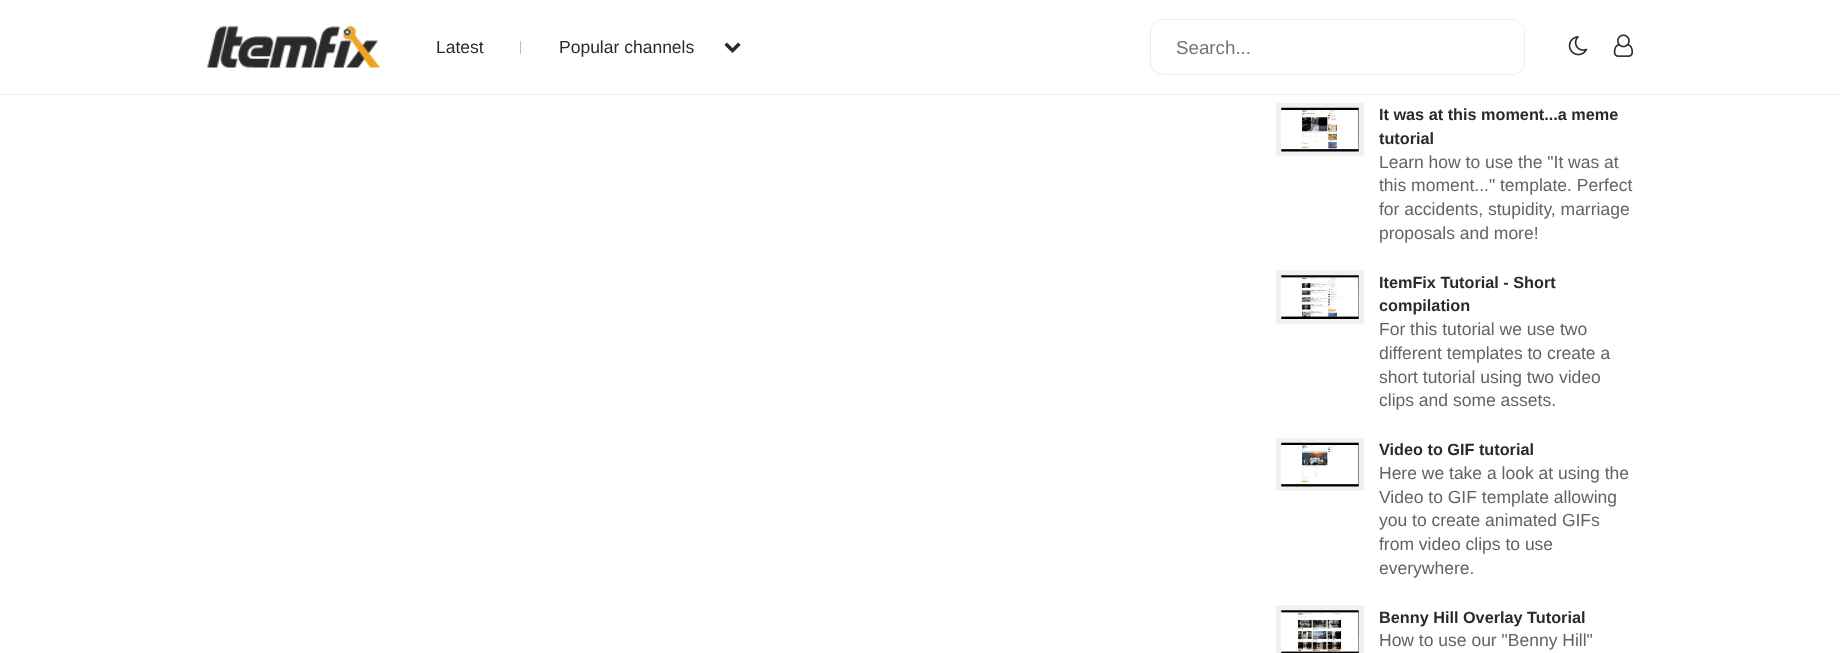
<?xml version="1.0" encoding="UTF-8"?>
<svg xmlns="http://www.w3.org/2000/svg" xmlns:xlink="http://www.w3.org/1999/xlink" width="1840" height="653">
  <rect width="100%" height="100%" fill="#ffffff" />
  <rect y="94" width="1840" height="1" fill="#ededed" />
  <image x="207" y="26" width="173" height="42" xlink:href="image1.png" />
  <rect x="520" y="41" width="1" height="13" fill="#bfbfbf" />
  <image x="724" y="42" width="17" height="11" xlink:href="image2.png" />
  <rect x="1150.5" y="19.5" width="374" height="55" rx="12.5" fill="none" stroke="#ededed" />
  <image x="1568" y="36" width="20" height="20" xlink:href="image3.png" />
  <image x="1613" y="34" width="20" height="23" xlink:href="image4.png" />
  <rect x="1278.5" y="105.5" width="83" height="48" fill="none" stroke="#f1f1f1" stroke-width="5" />
  <image x="1281" y="107" width="78" height="45" xlink:href="image5.png" />
  <rect x="1278.5" y="272.5" width="83" height="49" fill="none" stroke="#f1f1f1" stroke-width="5" />
  <image x="1281" y="275" width="78" height="44" xlink:href="image6.png" />
  <rect x="1278.5" y="440.5" width="83" height="48" fill="none" stroke="#f1f1f1" stroke-width="5" />
  <image x="1281" y="442" width="78" height="45" xlink:href="image7.png" />
  <rect x="1278.5" y="607.5" width="83" height="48" fill="none" stroke="#f1f1f1" stroke-width="5" />
  <image x="1281" y="610" width="78" height="43" xlink:href="image8.png" />
  <text x="436" y="53" style="font-family: Liberation Sans; font-size: 17.5px; fill: #2a2a2a">Latest</text>
  <text x="559" y="53" style="font-family: Liberation Sans; font-size: 17.5px; fill: #2a2a2a">Popular channels</text>
  <text x="1176" y="54" style="font-family: Liberation Sans; font-size: 18.75px; fill: #757575">Search...</text>
  <text x="1379" y="120" style="font-family: Liberation Sans; font-size: 16.25px; font-weight: bold; fill: #2a2a2a">It was at this moment...a meme</text>
  <text x="1379" y="144" style="font-family: Liberation Sans; font-size: 16.25px; font-weight: bold; fill: #2a2a2a">tutorial</text>
  <text x="1379" y="168" style="font-family: Liberation Sans; font-size: 17.5px; fill: #636363">Learn how to use the "It was at</text>
  <text x="1379" y="191" style="font-family: Liberation Sans; font-size: 17.5px; fill: #636363">this moment..." template. Perfect</text>
  <text x="1379" y="215" style="font-family: Liberation Sans; font-size: 17.5px; fill: #636363">for accidents, stupidity, marriage</text>
  <text x="1379" y="239" style="font-family: Liberation Sans; font-size: 17.5px; fill: #636363">proposals and more!</text>
  <text x="1379" y="288" style="font-family: Liberation Sans; font-size: 16.25px; font-weight: bold; fill: #2a2a2a">ItemFix Tutorial - Short</text>
  <text x="1379" y="311" style="font-family: Liberation Sans; font-size: 16.25px; font-weight: bold; fill: #2a2a2a">compilation</text>
  <text x="1379" y="335" style="font-family: Liberation Sans; font-size: 17.5px; fill: #636363">For this tutorial we use two</text>
  <text x="1379" y="359" style="font-family: Liberation Sans; font-size: 17.5px; fill: #636363">different templates to create a</text>
  <text x="1379" y="383" style="font-family: Liberation Sans; font-size: 17.5px; fill: #636363">short tutorial using two video</text>
  <text x="1379" y="406" style="font-family: Liberation Sans; font-size: 17.5px; fill: #636363">clips and some assets.</text>
  <text x="1379" y="455" style="font-family: Liberation Sans; font-size: 16.25px; font-weight: bold; fill: #2a2a2a">Video to GIF tutorial</text>
  <text x="1379" y="479" style="font-family: Liberation Sans; font-size: 17.5px; fill: #636363">Here we take a look at using the</text>
  <text x="1379" y="503" style="font-family: Liberation Sans; font-size: 17.5px; fill: #636363">Video to GIF template allowing</text>
  <text x="1379" y="526" style="font-family: Liberation Sans; font-size: 17.5px; fill: #636363">you to create animated GIFs</text>
  <text x="1379" y="550" style="font-family: Liberation Sans; font-size: 17.5px; fill: #636363">from video clips to use</text>
  <text x="1379" y="574" style="font-family: Liberation Sans; font-size: 17.5px; fill: #636363">everywhere.</text>
  <text x="1379" y="623" style="font-family: Liberation Sans; font-size: 16.25px; font-weight: bold; fill: #2a2a2a">Benny Hill Overlay Tutorial</text>
  <text x="1379" y="646" style="font-family: Liberation Sans; font-size: 17.5px; fill: #636363">How to use our "Benny Hill"</text>
</svg>
